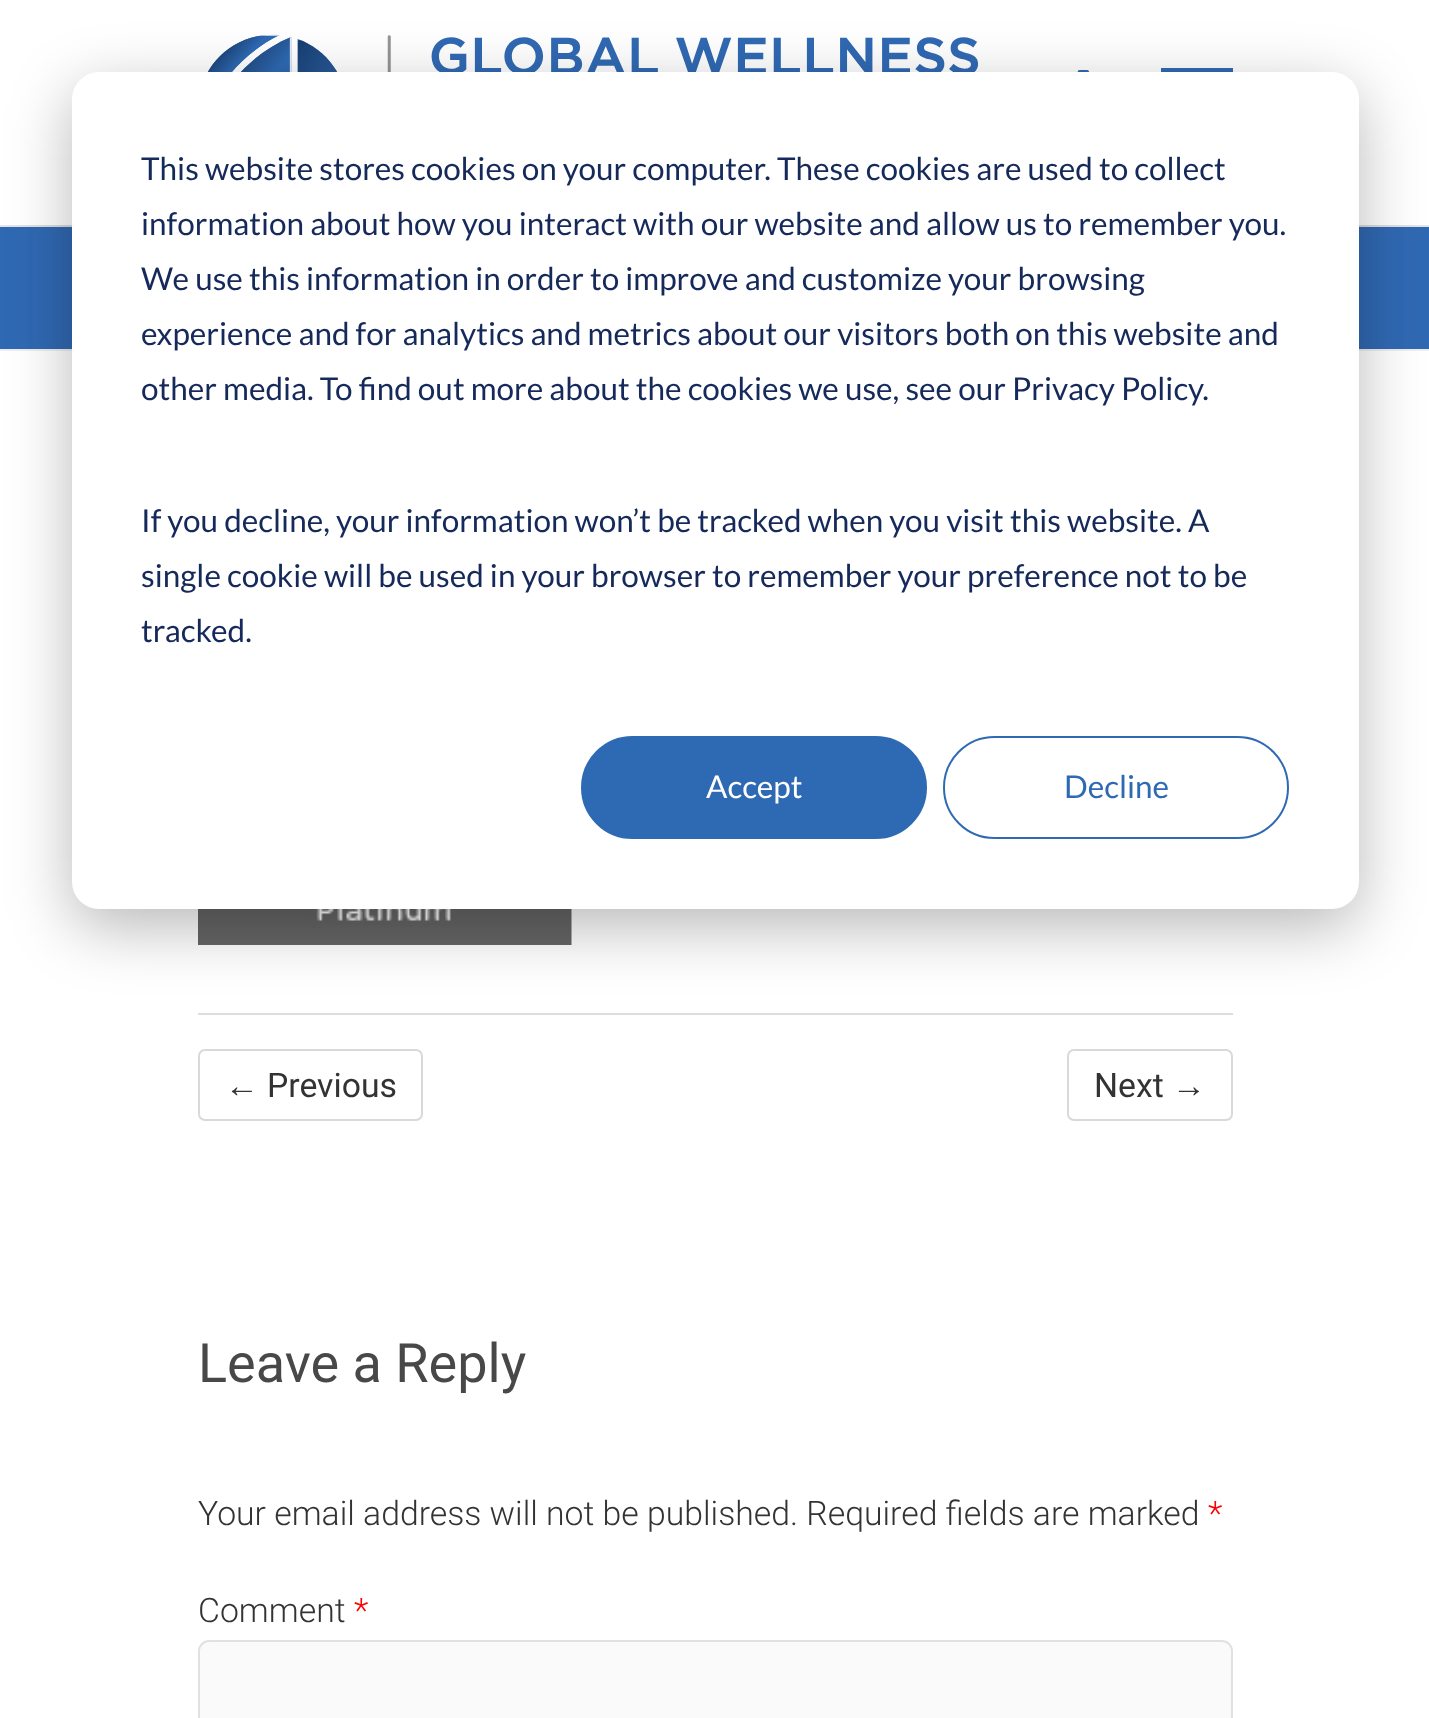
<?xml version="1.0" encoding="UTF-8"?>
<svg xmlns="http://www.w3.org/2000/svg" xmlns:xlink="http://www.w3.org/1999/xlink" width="1429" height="1718">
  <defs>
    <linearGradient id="g1" gradientUnits="userSpaceOnUse" x1="0" y1="226" x2="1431" y2="226"><stop offset="0" stop-color="#e6e6e6" /><stop offset="0.1" stop-color="#cfcfcf" /><stop offset="0.9" stop-color="#cfcfcf" /><stop offset="1" stop-color="#e6e6e6" /></linearGradient>
  </defs>
  <rect width="100%" height="100%" fill="#ffffff" />
  <image x="208" y="34" width="771" height="38" xlink:href="image1.png" />
  <image x="1077" y="70" width="12" height="2" xlink:href="image2.png" />
  <rect x="1161" y="68" width="72" height="4" fill="#3069b3" />
  <rect y="225" width="1429" height="2" fill="url(#g1)" />
  <rect y="227" width="1429" height="122" fill="#3069b3" />
  <rect y="349" width="1429" height="2" fill="#eeeeee" />
  <image x="198" y="909" width="374" height="36" xlink:href="image3.png" />
  <rect x="198" y="1013" width="1035" height="2" fill="#dddddd" />
  <rect x="72" y="90" width="1287" height="837" rx="27" fill="#000000" fill-opacity="0.28" filter="blur(31.5px)" />
  <rect x="72" y="72" width="1287" height="837" rx="27" fill="#ffffff" />
  <rect x="582" y="737" width="344" height="101" rx="50.5" fill="#2e6ab3" stroke="#2e6ab3" stroke-width="2" />
  <rect x="944" y="737" width="344" height="101" rx="50.5" fill="none" stroke="#2e6ab3" stroke-width="2" />
  <rect x="199" y="1050" width="223" height="70" rx="6" fill="none" stroke="#d9d9d9" stroke-width="2" />
  <rect x="1068" y="1050" width="164" height="70" rx="6" fill="none" stroke="#d9d9d9" stroke-width="2" />
  <rect x="199" y="1641" width="1033" height="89" rx="10" fill="#fafafa" stroke="#e1e1e1" stroke-width="2" />
  <text x="141" y="180" style="font-family: Lato; font-size: 31.5px; fill: #15295a">This website stores cookies on your computer. These cookies are used to collect</text>
  <text x="141" y="235" style="font-family: Lato; font-size: 31.5px; fill: #15295a">information about how you interact with our website and allow us to remember you.</text>
  <text x="141" y="290" style="font-family: Lato; font-size: 31.5px; fill: #15295a">We use this information in order to improve and customize your browsing</text>
  <text x="141" y="345" style="font-family: Lato; font-size: 31.5px; fill: #15295a">experience and for analytics and metrics about our visitors both on this website and</text>
  <text x="141" y="400" style="font-family: Lato; font-size: 31.5px; fill: #15295a">other media. To find out more about the cookies we use, see our Privacy Policy.</text>
  <text x="141" y="532" style="font-family: Lato; font-size: 31.5px; fill: #15295a">If you decline, your information won’t be tracked when you visit this website. A</text>
  <text x="141" y="587" style="font-family: Lato; font-size: 31.5px; fill: #15295a">single cookie will be used in your browser to remember your preference not to be</text>
  <text x="141" y="642" style="font-family: Lato; font-size: 31.5px; fill: #15295a">tracked.</text>
  <text x="706" y="798" style="font-family: Lato; font-size: 31.5px; fill: #ffffff">Accept</text>
  <text x="1064" y="798" style="font-family: Lato; font-size: 31.5px; fill: #2e6ab3">Decline</text>
  <text x="225" y="1097" style="font-family: Liberation Sans; font-size: 33.75px; fill: #333333">←</text>
  <text x="267" y="1097" style="font-family: Roboto; font-size: 33.75px; fill: #333333">Previous</text>
  <text x="1094" y="1097" style="font-family: Roboto; font-size: 33.75px; fill: #333333">Next</text>
  <text x="1172" y="1097" style="font-family: Liberation Sans; font-size: 33.75px; fill: #333333">→</text>
  <text x="198" y="1382" style="font-family: Roboto; font-size: 54px; fill: #484848">Leave a Reply</text>
  <text x="198" y="1525" style="font-family: Roboto; font-size: 33.75px; font-weight: 300; fill: #333333">Your email address will not be published. Required fields are marked</text>
  <text x="1208" y="1525" style="font-family: Roboto; font-size: 33.75px; font-weight: 300; fill: #ff0000">*</text>
  <text x="198" y="1622" style="font-family: Roboto; font-size: 33.75px; font-weight: 300; fill: #333333">Comment</text>
  <text x="354" y="1622" style="font-family: Roboto; font-size: 33.75px; font-weight: 300; fill: #ff0000">*</text>
</svg>
